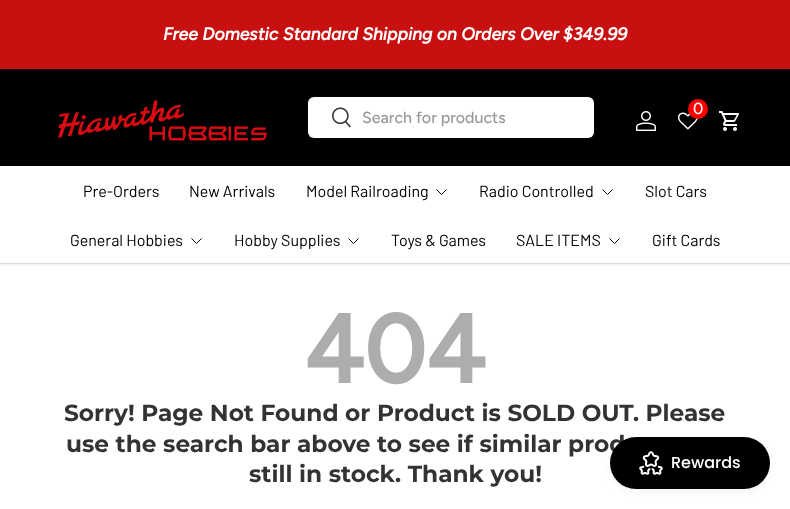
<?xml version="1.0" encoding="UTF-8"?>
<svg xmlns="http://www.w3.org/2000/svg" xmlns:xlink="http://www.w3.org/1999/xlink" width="790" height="509">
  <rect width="100%" height="100%" fill="#ffffff" />
  <rect x="-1" y="68" width="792" height="197" fill="#000000" fill-opacity="0.08" filter="blur(1.5px)" />
  <rect width="790" height="69" fill="#c91010" />
  <rect y="69" width="790" height="97" fill="#000000" />
  <image x="58" y="100" width="209" height="41" xlink:href="image1.png" />
  <image x="678" y="112" width="20" height="18" xlink:href="image2.png" />
  <circle cx="698" cy="109" r="10" fill="#ff0001" />
  <image x="636" y="111" width="20" height="20" xlink:href="image3.png" />
  <image x="719" y="111" width="20" height="20" xlink:href="image4.png" />
  <rect x="307.5" y="96.5" width="287" height="42" rx="5.5" fill="none" stroke="#080808" />
  <rect x="308" y="97" width="286" height="41" rx="6" fill="#ffffff" />
  <image x="332" y="107" width="19" height="21" xlink:href="image5.png" />
  <rect y="166" width="790" height="97" fill="#ffffff" />
  <path d="M 446.5 189.5 l -5 5 l -5 -5" fill="none" stroke="#000000" />
  <path d="M 612.5 189.5 l -5 5 l -5 -5" fill="none" stroke="#000000" />
  <path d="M 201.5 238.5 l -5 5 l -5 -5" fill="none" stroke="#000000" />
  <path d="M 358.5 238.5 l -5 5 l -5 -5" fill="none" stroke="#000000" />
  <path d="M 619.5 238.5 l -5 5 l -5 -5" fill="none" stroke="#000000" />
  <rect y="263" width="790" height="1" fill="#d9d9d9" />
  <rect x="612" y="443" width="156" height="48" rx="24" fill="#444444" fill-opacity="0.08" filter="blur(4px)" />
  <text x="163" y="40" style="font-family: Figtree; font-size: 17.6px; font-weight: bold; font-style: italic; fill: #ffffff">Free Domestic Standard Shipping on Orders Over $349.99</text>
  <text x="693" y="114" style="font-family: Figtree; font-size: 16px; font-weight: 500; fill: #ffffff">0</text>
  <text x="362" y="123" style="font-family: Figtree; font-size: 16px; font-weight: 500; fill: #999999">Search for products</text>
  <text x="83" y="197" style="font-family: Barlow; font-size: 16px; fill: #000000">Pre-Orders</text>
  <text x="189" y="197" style="font-family: Barlow; font-size: 16px; fill: #000000">New Arrivals</text>
  <text x="306" y="197" style="font-family: Barlow; font-size: 16px; fill: #000000">Model Railroading</text>
  <text x="479" y="197" style="font-family: Barlow; font-size: 16px; fill: #000000">Radio Controlled</text>
  <text x="645" y="197" style="font-family: Barlow; font-size: 16px; fill: #000000">Slot Cars</text>
  <text x="70" y="246" style="font-family: Barlow; font-size: 16px; fill: #000000">General Hobbies</text>
  <text x="234" y="246" style="font-family: Barlow; font-size: 16px; fill: #000000">Hobby Supplies</text>
  <text x="391" y="246" style="font-family: Barlow; font-size: 16px; fill: #000000">Toys &amp; Games</text>
  <text x="516" y="246" style="font-family: Barlow; font-size: 16px; fill: #000000">SALE ITEMS</text>
  <text x="652" y="246" style="font-family: Barlow; font-size: 16px; fill: #000000">Gift Cards</text>
  <text x="304" y="383" style="font-family: Figtree; font-size: 96px; font-weight: bold; fill: #adadad">404</text>
  <text x="64" y="421" style="font-family: Montserrat; font-size: 23.25px; font-weight: bold; fill: #333333">Sorry! Page Not Found or Product is SOLD OUT. Please</text>
  <text x="66" y="452" style="font-family: Montserrat; font-size: 23.25px; font-weight: bold; fill: #333333">use the search bar above to see if similar prod</text>
  <text x="249" y="482" style="font-family: Montserrat; font-size: 23.25px; font-weight: bold; fill: #333333">still in stock. Thank you!</text>
  <rect x="610" y="437" width="160" height="52" rx="26" fill="#000000" />
  <image x="639" y="451" width="24" height="24" xlink:href="image6.png" />
  <text x="671" y="468" style="font-family: Poppins; font-size: 16px; font-weight: 500; fill: #ffffff">Rewards</text>
</svg>
